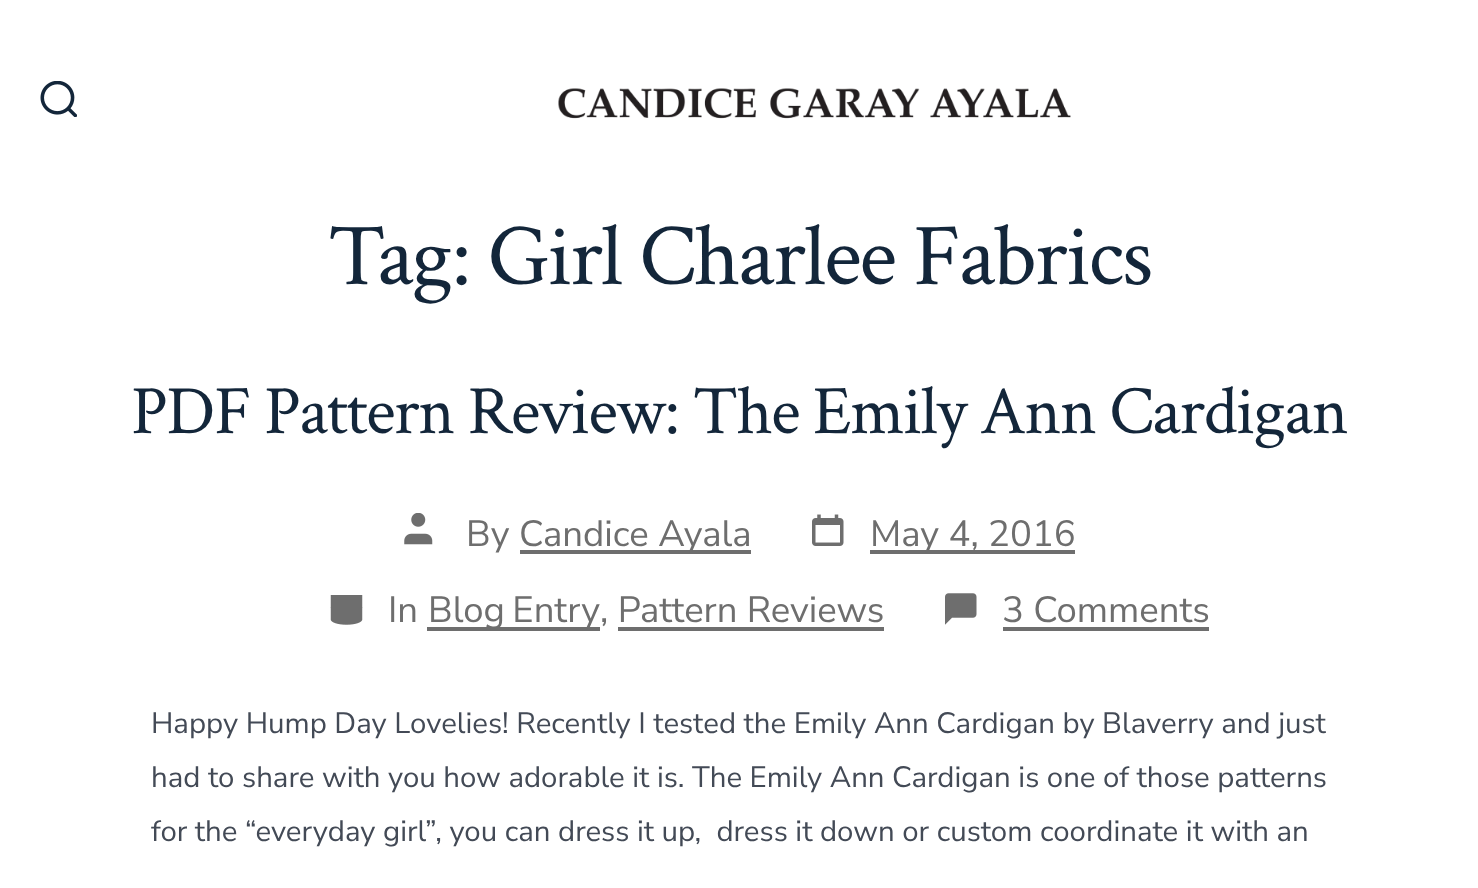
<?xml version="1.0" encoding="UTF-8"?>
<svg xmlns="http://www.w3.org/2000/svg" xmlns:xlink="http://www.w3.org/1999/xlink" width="1478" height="888">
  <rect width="100%" height="100%" fill="#ffffff" />
  <image x="40" y="81" width="37" height="36" xlink:href="image1.png" />
  <image x="558" y="88" width="513" height="31" xlink:href="image2.png" />
  <image x="404" y="513" width="29" height="32" xlink:href="image3.png" />
  <rect x="520" y="550" width="231" height="4" fill="#6e6e6e" />
  <image x="812" y="514" width="32" height="32" xlink:href="image4.png" />
  <rect x="870" y="550" width="205" height="4" fill="#6e6e6e" />
  <image x="330" y="595" width="33" height="30" xlink:href="image5.png" />
  <rect x="427" y="627" width="173" height="4" fill="#6e6e6e" />
  <rect x="618" y="627" width="266" height="4" fill="#6e6e6e" />
  <image x="945" y="593" width="32" height="32" xlink:href="image6.png" />
  <rect x="1003" y="627" width="206" height="4" fill="#6e6e6e" />
  <text x="328" y="284" style="font-family: Crimson Text; font-size: 88.5px; letter-spacing: -1.75px; fill: #13263a">Tag: Girl Charlee Fabrics</text>
  <text x="131" y="433" style="font-family: Crimson Text; font-size: 69.3px; letter-spacing: -1.4px; fill: #13263a">PDF Pattern Review: The Emily Ann Cardigan</text>
  <text x="466" y="546" style="font-family: Nunito Sans; font-size: 36.5px; fill: #6e6e6e">By</text>
  <text x="519" y="546" style="font-family: Nunito Sans; font-size: 36.5px; fill: #6e6e6e">Candice Ayala</text>
  <text x="870" y="546" style="font-family: Nunito Sans; font-size: 36.5px; fill: #6e6e6e">May 4, 2016</text>
  <text x="388" y="622" style="font-family: Nunito Sans; font-size: 36.5px; fill: #6e6e6e">In</text>
  <text x="428" y="622" word-spacing="-2" style="font-family: Nunito Sans; font-size: 36.5px; fill: #6e6e6e">Blog Entry</text>
  <text x="600" y="622" style="font-family: Nunito Sans; font-size: 36.5px; fill: #6e6e6e">, Pattern Reviews</text>
  <text x="1002" y="622" style="font-family: Nunito Sans; font-size: 36.5px; fill: #6e6e6e">3 Comments</text>
  <text x="151" y="733" style="font-family: Nunito Sans; font-size: 29.4px; fill: #434a56">Happy Hump Day Lovelies! Recently I tested the Emily Ann Cardigan by Blaverry and just</text>
  <text x="151" y="787" style="font-family: Nunito Sans; font-size: 29.4px; fill: #434a56">had to share with you how adorable it is. The Emily Ann Cardigan is one of those patterns</text>
  <text x="151" y="841" style="font-family: Nunito Sans; font-size: 29.4px; fill: #434a56" xml:space="preserve">for the “everyday girl”, you can dress it up,  dress it down or custom coordinate it with an</text>
</svg>
